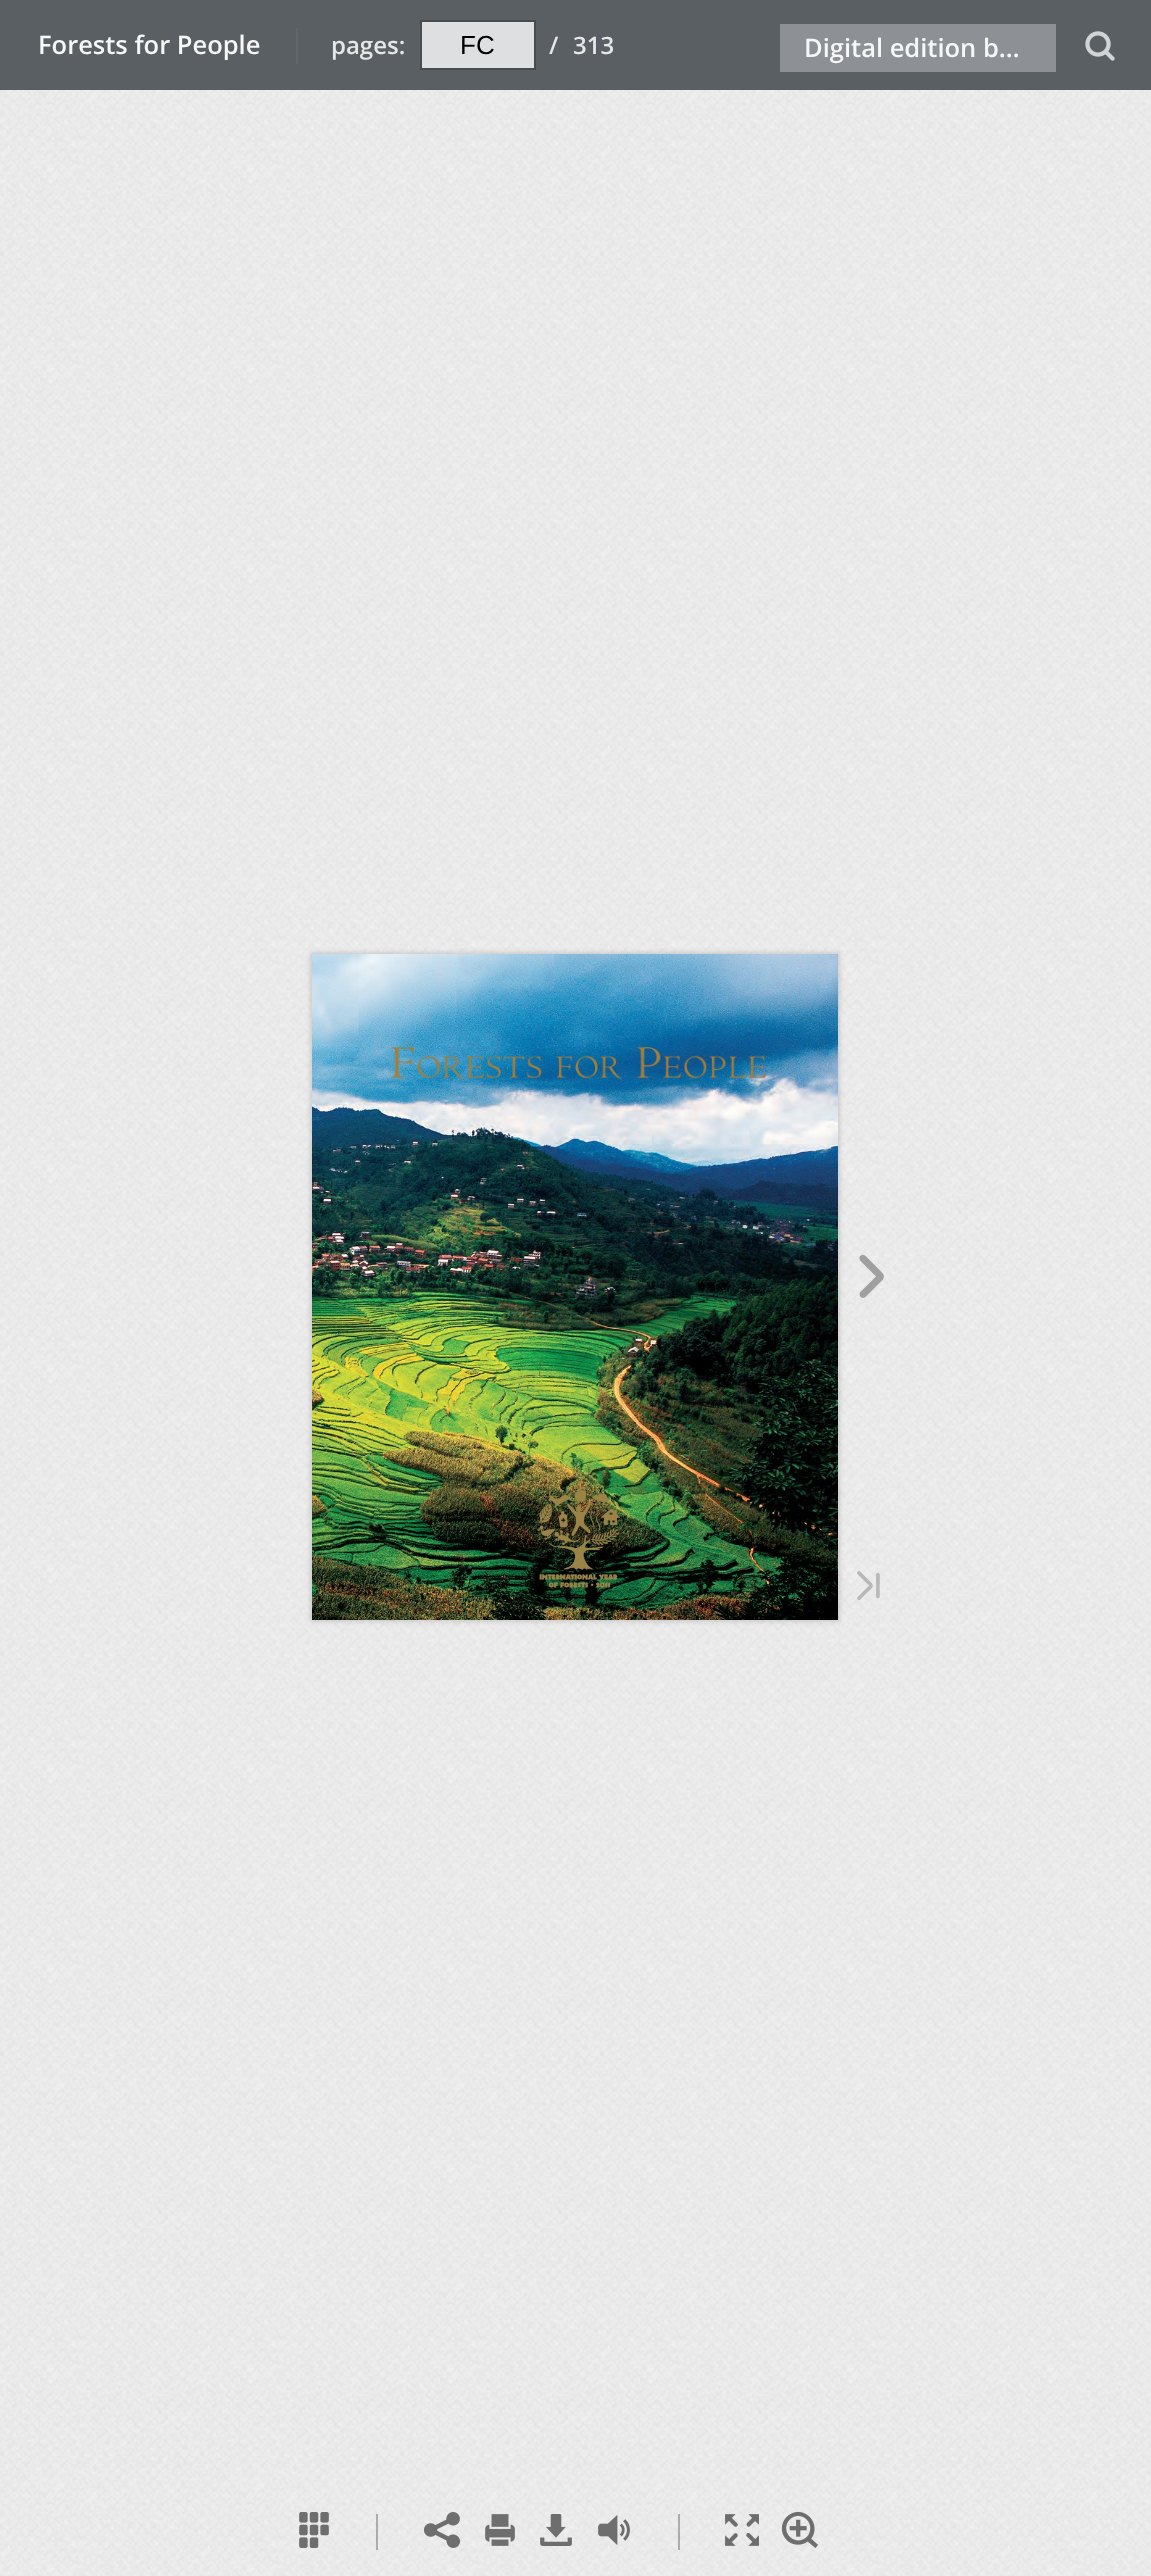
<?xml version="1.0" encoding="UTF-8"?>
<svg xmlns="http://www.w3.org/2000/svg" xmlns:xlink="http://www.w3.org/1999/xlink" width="1151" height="2576">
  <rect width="100%" height="100%" fill="#f2f2f2" />
  <image x="0" y="90" width="1151" height="2486" xlink:href="image1.png" />
  <rect width="1151" height="90" fill="#5a5f63" />
  <rect x="296" y="28" width="2" height="36" fill="#646769" />
  <rect x="421" y="21" width="114" height="48" fill="#dedfe0" stroke="#484c4f" stroke-width="2" />
  <rect x="780" y="24" width="276" height="48" fill="#8d9195" />
  <image x="1085" y="31" width="30" height="30" xlink:href="image2.png" />
  <rect x="310" y="952" width="530" height="670" fill="#737373" fill-opacity="0.25" filter="blur(2px)" />
  <image x="312" y="954" width="526" height="666" xlink:href="image3.png" />
  <image x="859" y="1254" width="25" height="44" xlink:href="image4.png" />
  <image x="857" y="1571" width="23" height="29" xlink:href="image5.png" />
  <image x="299" y="2512" width="30" height="36" xlink:href="image6.png" />
  <rect x="376" y="2514" width="2" height="36" fill="#6e6e6e" fill-opacity="0.5" />
  <image x="423" y="2512" width="38" height="36" xlink:href="image7.png" />
  <image x="485" y="2514" width="30" height="32" xlink:href="image8.png" />
  <image x="540" y="2514" width="32" height="32" xlink:href="image9.png" />
  <image x="598" y="2514" width="32" height="31" xlink:href="image10.png" />
  <rect x="678" y="2514" width="2" height="36" fill="#6e6e6e" fill-opacity="0.5" />
  <image x="725" y="2514" width="34" height="32" xlink:href="image11.png" />
  <image x="781" y="2511" width="37" height="37" xlink:href="image12.png" />
  <text x="38" y="54" style="font-family: Open Sans; font-size: 25.5px; font-weight: 600; fill: #f6f7f7">Forests for People</text>
  <text x="331" y="54" style="font-family: Open Sans; font-size: 24px; font-weight: 600; fill: #e6e8e8">pages:</text>
  <text x="460" y="54" style="font-family: Liberation Sans; font-size: 26px; fill: #000000">FC</text>
  <text x="549" y="54" style="font-family: Open Sans; font-size: 24px; font-weight: 600; fill: #e6e8e8">/</text>
  <text x="573" y="54" style="font-family: Open Sans; font-size: 24px; font-weight: 600; fill: #e6e8e8">313</text>
  <text x="804" y="57" style="font-family: Open Sans; font-size: 25.5px; font-weight: 600; fill: #f6f7f7">Digital edition b…</text>
</svg>
